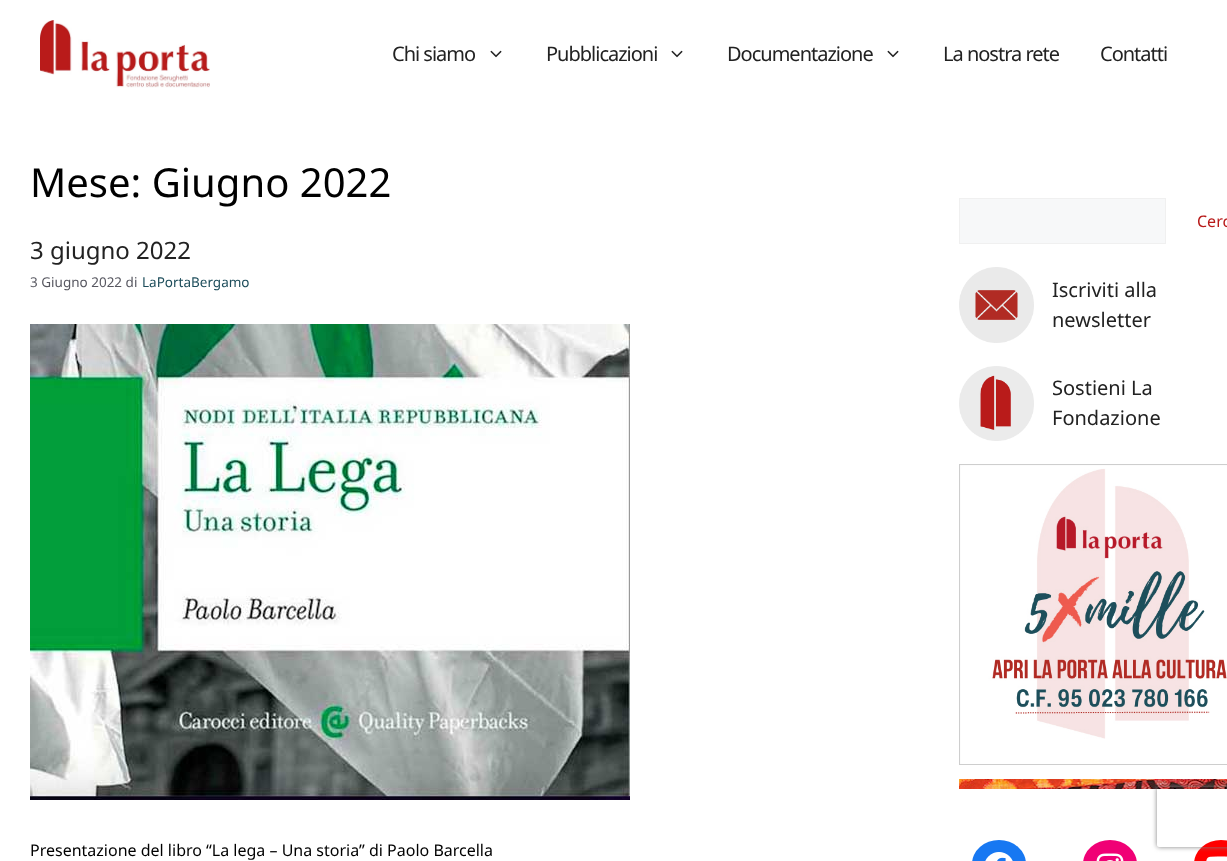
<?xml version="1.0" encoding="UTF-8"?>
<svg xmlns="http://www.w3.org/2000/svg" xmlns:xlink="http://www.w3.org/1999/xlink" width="1227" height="861">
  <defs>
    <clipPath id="clip1"><path d="M 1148 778 h 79 v 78 h -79 z m 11 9 h 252 c 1 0 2 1 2 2 v 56 c 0 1 -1 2 -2 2 h -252 c -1 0 -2 -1 -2 -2 v -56 c 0 -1 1 -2 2 -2 z" clip-rule="evenodd" /></clipPath>
  </defs>
  <rect width="100%" height="100%" fill="#ffffff" />
  <image x="40" y="20" width="170" height="68" xlink:href="image1.png" />
  <image x="490" y="50" width="12" height="8" xlink:href="image2.png" />
  <image x="671" y="50" width="12" height="8" xlink:href="image2.png" />
  <image x="887" y="50" width="12" height="8" xlink:href="image2.png" />
  <image x="30" y="324" width="600" height="476" xlink:href="image3.png" />
  <rect x="959.5" y="198.5" width="206" height="45" fill="#f7f8f9" stroke="#f0f0f0" />
  <image x="959" y="267" width="75" height="76" xlink:href="image4.png" />
  <image x="959" y="366" width="75" height="75" xlink:href="image5.png" />
  <image x="959" y="464" width="268" height="301" xlink:href="image6.png" />
  <image x="959" y="779" width="268" height="10" xlink:href="image7.png" />
  <rect x="972" y="840" width="54" height="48" rx="27" fill="#1778f2" />
  <image x="985" y="852" width="28" height="9" xlink:href="image8.png" />
  <rect x="1083" y="840" width="54" height="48" rx="27" fill="#f00075" />
  <image x="1096" y="853" width="28" height="8" xlink:href="image9.png" />
  <rect x="1194" y="840" width="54" height="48" rx="27" fill="#ff0000" />
  <image x="1206" y="856" width="21" height="5" xlink:href="image10.png" />
  <g clip-path="url(#clip1)">
    <rect x="1157" y="787" width="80" height="60" rx="2" fill="#808080" filter="blur(2.5px)" />
  </g>
  <text x="392" y="61" style="font-family: Noto Sans; font-size: 20px; letter-spacing: -1px; fill: #222222">Chi siamo</text>
  <text x="546" y="61" style="font-family: Noto Sans; font-size: 20px; letter-spacing: -1px; fill: #222222">Pubblicazioni</text>
  <text x="727" y="61" style="font-family: Noto Sans; font-size: 20px; letter-spacing: -1px; fill: #222222">Documentazione</text>
  <text x="943" y="61" style="font-family: Noto Sans; font-size: 20px; letter-spacing: -1px; fill: #222222">La nostra rete</text>
  <text x="1100" y="61" style="font-family: Noto Sans; font-size: 20px; letter-spacing: -1px; fill: #222222">Contatti</text>
  <text x="30" y="197" style="font-family: Noto Sans; font-size: 40px; fill: #000000">Mese: Giugno 2022</text>
  <text x="30" y="259" style="font-family: Noto Sans; font-size: 24px; fill: #222222">3 giugno 2022</text>
  <text x="30" y="287" style="font-family: Noto Sans; font-size: 13.5px; fill: #575760">3 Giugno 2022 di</text>
  <text x="142" y="287" style="font-family: Noto Sans; font-size: 13.5px; fill: #1d4d5b">LaPortaBergamo</text>
  <text x="30" y="856" style="font-family: Noto Sans; font-size: 16px; fill: #000000">Presentazione del libro “La lega – Una storia” di Paolo Barcella</text>
  <text x="1197" y="227" style="font-family: Noto Sans; font-size: 16px; fill: #b81b1a">Cerc</text>
  <text x="1052" y="297" style="font-family: Noto Sans; font-size: 20px; fill: #222222">Iscriviti alla</text>
  <text x="1052" y="327" style="font-family: Noto Sans; font-size: 20px; fill: #222222">newsletter</text>
  <text x="1052" y="395" style="font-family: Noto Sans; font-size: 20px; fill: #222222">Sostieni La</text>
  <text x="1052" y="425" style="font-family: Noto Sans; font-size: 20px; fill: #222222">Fondazione</text>
</svg>
